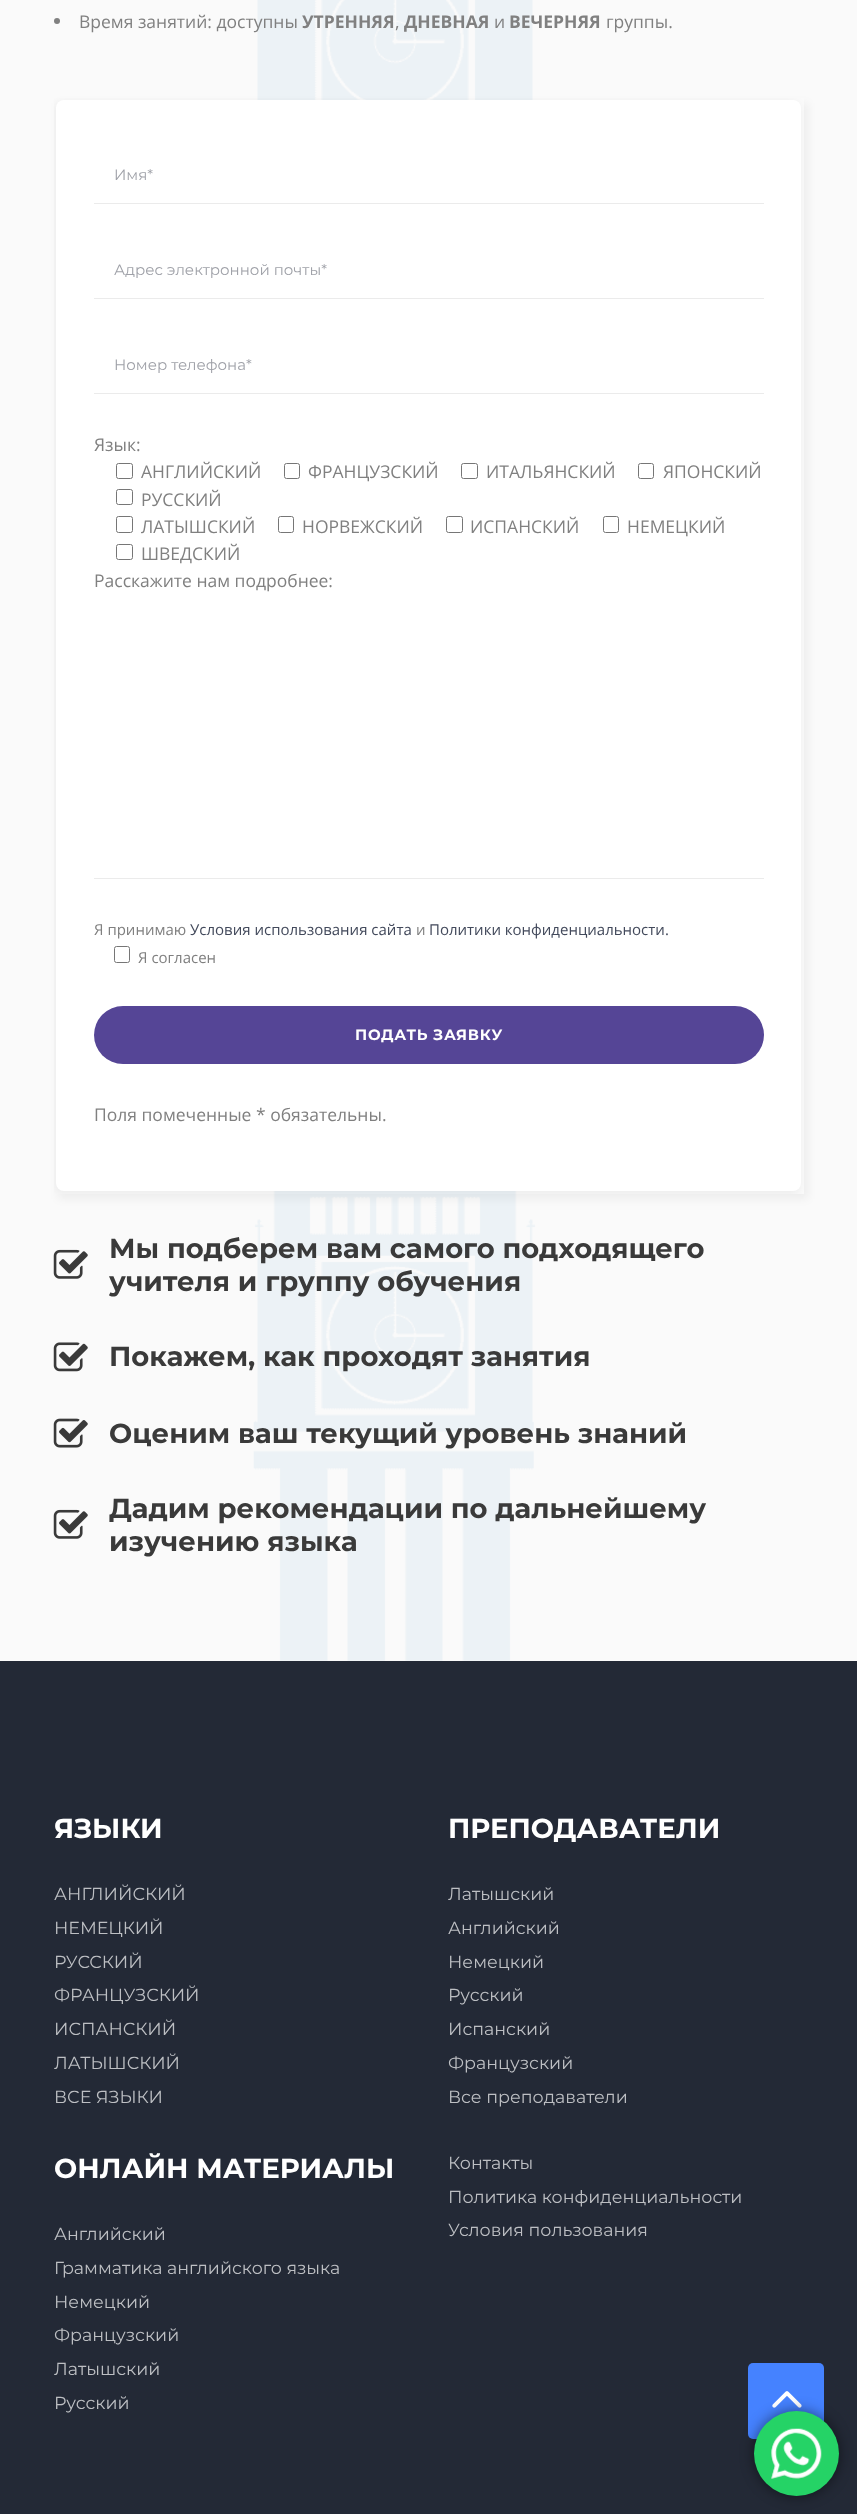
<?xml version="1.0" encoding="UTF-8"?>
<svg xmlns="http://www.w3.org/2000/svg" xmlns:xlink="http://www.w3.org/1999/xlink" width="857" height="2514">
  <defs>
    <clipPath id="clip1"><path d="M 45 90 h 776 v 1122 h -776 z m 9 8 h 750 v 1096 h -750 z" clip-rule="evenodd" /></clipPath>
    <clipPath id="clip2"><rect x="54" y="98" width="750" height="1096" /></clipPath>
  </defs>
  <rect width="100%" height="100%" fill="#ffffff" />
  <image x="0" y="0" width="857" height="1661" xlink:href="image1.png" />
  <circle cx="57" cy="21" r="3" fill="#808080" />
  <g clip-path="url(#clip1)">
    <rect x="58" y="103" width="750" height="1096" fill="#000000" fill-opacity="0.05" filter="blur(4px)" />
  </g>
  <g clip-path="url(#clip2)">
    <rect x="53" y="101" width="747" height="1094" rx="9" fill="#000000" fill-opacity="0.05" filter="blur(4px)" />
  </g>
  <rect x="56" y="100" width="745" height="1091" rx="8" fill="#ffffff" />
  <rect x="94" y="203" width="670" height="1" fill="#ebebeb" />
  <rect x="94" y="298" width="670" height="1" fill="#ebebeb" />
  <rect x="94" y="393" width="670" height="1" fill="#ebebeb" />
  <rect x="116.5" y="463.5" width="16" height="15" rx="2" fill="none" stroke="#767676" />
  <rect x="284.5" y="463.5" width="15" height="15" rx="2" fill="none" stroke="#767676" />
  <rect x="461.5" y="463.5" width="16" height="15" rx="2" fill="none" stroke="#767676" />
  <rect x="638.5" y="463.5" width="15" height="15" rx="2" fill="none" stroke="#767676" />
  <rect x="116.5" y="489.5" width="16" height="15" rx="2" fill="none" stroke="#767676" />
  <rect x="116.5" y="516.5" width="16" height="16" rx="2" fill="none" stroke="#767676" />
  <rect x="278.5" y="516.5" width="15" height="16" rx="2" fill="none" stroke="#767676" />
  <rect x="446.5" y="516.5" width="16" height="16" rx="2" fill="none" stroke="#767676" />
  <rect x="603.5" y="516.5" width="15" height="16" rx="2" fill="none" stroke="#767676" />
  <rect x="116.5" y="544.5" width="16" height="15" rx="2" fill="none" stroke="#767676" />
  <rect x="94" y="878" width="670" height="1" fill="#ebebeb" />
  <rect x="114.5" y="946.5" width="15" height="16" rx="2" fill="none" stroke="#767676" />
  <rect x="94" y="1006" width="670" height="58" rx="29" fill="#554596" />
  <image x="53" y="1249" width="35" height="30" xlink:href="image2.png" />
  <image x="53" y="1342" width="35" height="30" xlink:href="image3.png" />
  <image x="53" y="1418" width="35" height="30" xlink:href="image4.png" />
  <image x="53" y="1509" width="35" height="30" xlink:href="image2.png" />
  <rect y="1661" width="857" height="853" fill="#232936" />
  <rect x="748" y="2363" width="76" height="76" rx="5" fill="#4582ff" />
  <image x="772" y="2391" width="30" height="17" xlink:href="image5.png" />
  <rect x="754" y="2411" width="85" height="85" rx="42.5" fill="#000000" fill-opacity="0.5" filter="blur(7px)" />
  <circle cx="796.5" cy="2453.5" r="42.5" fill="#25d366" />
  <image x="771" y="2428" width="51" height="51" xlink:href="image6.png" />
  <text x="79" y="28" style="font-family: Open Sans; font-size: 17.5px; fill: #808080">Время занятий: доступны</text>
  <text x="302" y="28" style="font-family: Open Sans; font-size: 17.5px; font-weight: bold; fill: #808080">УТРЕННЯЯ</text>
  <text x="395" y="28" style="font-family: Open Sans; font-size: 17.5px; fill: #808080">,</text>
  <text x="404" y="28" style="font-family: Open Sans; font-size: 17.5px; font-weight: bold; fill: #808080">ДНЕВНАЯ</text>
  <text x="494" y="28" style="font-family: Open Sans; font-size: 17.5px; fill: #808080">и</text>
  <text x="509" y="28" style="font-family: Open Sans; font-size: 17.5px; font-weight: bold; fill: #808080">ВЕЧЕРНЯЯ</text>
  <text x="606" y="28" style="font-family: Open Sans; font-size: 17.5px; fill: #808080">группы.</text>
  <text x="114" y="180" style="font-family: Montserrat; font-size: 15px; fill: #9fa1a8">Имя*</text>
  <text x="114" y="275" style="font-family: Montserrat; font-size: 15px; fill: #9fa1a8">Адрес электронной почты*</text>
  <text x="114" y="370" style="font-family: Montserrat; font-size: 15px; fill: #9fa1a8">Номер телефона*</text>
  <text x="94" y="451" style="font-family: Open Sans; font-size: 17.5px; fill: #808080">Язык:</text>
  <text x="141" y="478" style="font-family: Open Sans; font-size: 17.5px; fill: #808080">АНГЛИЙСКИЙ</text>
  <text x="308" y="478" style="font-family: Open Sans; font-size: 17.5px; fill: #808080">ФРАНЦУЗСКИЙ</text>
  <text x="486" y="478" style="font-family: Open Sans; font-size: 17.5px; fill: #808080">ИТАЛЬЯНСКИЙ</text>
  <text x="663" y="478" style="font-family: Open Sans; font-size: 17.5px; fill: #808080">ЯПОНСКИЙ</text>
  <text x="141" y="506" style="font-family: Open Sans; font-size: 17.5px; fill: #808080">РУССКИЙ</text>
  <text x="141" y="533" style="font-family: Open Sans; font-size: 17.5px; fill: #808080">ЛАТЫШСКИЙ</text>
  <text x="302" y="533" style="font-family: Open Sans; font-size: 17.5px; fill: #808080">НОРВЕЖСКИЙ</text>
  <text x="470" y="533" style="font-family: Open Sans; font-size: 17.5px; fill: #808080">ИСПАНСКИЙ</text>
  <text x="627" y="533" style="font-family: Open Sans; font-size: 17.5px; fill: #808080">НЕМЕЦКИЙ</text>
  <text x="141" y="560" style="font-family: Open Sans; font-size: 17.5px; fill: #808080">ШВЕДСКИЙ</text>
  <text x="94" y="587" style="font-family: Open Sans; font-size: 17.5px; fill: #808080">Расскажите нам подробнее:</text>
  <text x="94" y="935" style="font-family: Open Sans; font-size: 15px; fill: #808080">Я принимаю</text>
  <text x="190" y="935" style="font-family: Open Sans; font-size: 15px; fill: #42495b">Условия использования сайта</text>
  <text x="416" y="935" style="font-family: Open Sans; font-size: 15px; fill: #808080">и</text>
  <text x="429" y="935" style="font-family: Open Sans; font-size: 15px; fill: #42495b">Политики конфиденциальности.</text>
  <text x="138" y="963" style="font-family: Open Sans; font-size: 15px; fill: #808080">Я согласен</text>
  <text x="355" y="1040" style="font-family: Montserrat; font-size: 15px; font-weight: bold; letter-spacing: 0.75px; fill: #ffffff">ПОДАТЬ ЗАЯВКУ</text>
  <text x="94" y="1121" style="font-family: Open Sans; font-size: 17.5px; fill: #808080">Поля помеченные * обязательны.</text>
  <text x="109" y="1258" style="font-family: Montserrat; font-size: 27.5px; font-weight: bold; fill: #3a3a3a">Мы подберем вам самого подходящего</text>
  <text x="109" y="1291" style="font-family: Montserrat; font-size: 27.5px; font-weight: bold; fill: #3a3a3a">учителя и группу обучения</text>
  <text x="109" y="1366" style="font-family: Montserrat; font-size: 27.5px; font-weight: bold; fill: #3a3a3a">Покажем, как проходят занятия</text>
  <text x="109" y="1443" style="font-family: Montserrat; font-size: 27.5px; font-weight: bold; fill: #3a3a3a">Оценим ваш текущий уровень знаний</text>
  <text x="109" y="1518" style="font-family: Montserrat; font-size: 27.5px; font-weight: bold; fill: #3a3a3a">Дадим рекомендации по дальнейшему</text>
  <text x="109" y="1551" style="font-family: Montserrat; font-size: 27.5px; font-weight: bold; fill: #3a3a3a">изучению языка</text>
  <text x="54" y="1838" style="font-family: Montserrat; font-size: 27.5px; font-weight: bold; fill: #ffffff">ЯЗЫКИ</text>
  <text x="54" y="1900" style="font-family: Montserrat; font-size: 17.5px; fill: #bdbfc3">АНГЛИЙСКИЙ</text>
  <text x="54" y="1934" style="font-family: Montserrat; font-size: 17.5px; fill: #bdbfc3">НЕМЕЦКИЙ</text>
  <text x="54" y="1968" style="font-family: Montserrat; font-size: 17.5px; fill: #bdbfc3">РУССКИЙ</text>
  <text x="54" y="2001" style="font-family: Montserrat; font-size: 17.5px; fill: #bdbfc3">ФРАНЦУЗСКИЙ</text>
  <text x="54" y="2035" style="font-family: Montserrat; font-size: 17.5px; fill: #bdbfc3">ИСПАНСКИЙ</text>
  <text x="54" y="2069" style="font-family: Montserrat; font-size: 17.5px; fill: #bdbfc3">ЛАТЫШСКИЙ</text>
  <text x="54" y="2103" style="font-family: Montserrat; font-size: 17.5px; fill: #bdbfc3">ВСЕ ЯЗЫКИ</text>
  <text x="448" y="1838" style="font-family: Montserrat; font-size: 27.5px; font-weight: bold; fill: #ffffff">ПРЕПОДАВАТЕЛИ</text>
  <text x="448" y="1900" style="font-family: Montserrat; font-size: 17.5px; fill: #bdbfc3">Латышский</text>
  <text x="448" y="1934" style="font-family: Montserrat; font-size: 17.5px; fill: #bdbfc3">Английский</text>
  <text x="448" y="1968" style="font-family: Montserrat; font-size: 17.5px; fill: #bdbfc3">Немецкий</text>
  <text x="448" y="2001" style="font-family: Montserrat; font-size: 17.5px; fill: #bdbfc3">Русский</text>
  <text x="448" y="2035" style="font-family: Montserrat; font-size: 17.5px; fill: #bdbfc3">Испанский</text>
  <text x="448" y="2069" style="font-family: Montserrat; font-size: 17.5px; fill: #bdbfc3">Французский</text>
  <text x="448" y="2103" style="font-family: Montserrat; font-size: 17.5px; fill: #bdbfc3">Все преподаватели</text>
  <text x="54" y="2178" style="font-family: Montserrat; font-size: 27.5px; font-weight: bold; fill: #ffffff">ОНЛАЙН МАТЕРИАЛЫ</text>
  <text x="54" y="2240" style="font-family: Montserrat; font-size: 17.5px; fill: #bdbfc3">Английский</text>
  <text x="54" y="2274" style="font-family: Montserrat; font-size: 17.5px; fill: #bdbfc3">Грамматика английского языка</text>
  <text x="54" y="2308" style="font-family: Montserrat; font-size: 17.5px; fill: #bdbfc3">Немецкий</text>
  <text x="54" y="2341" style="font-family: Montserrat; font-size: 17.5px; fill: #bdbfc3">Французский</text>
  <text x="54" y="2375" style="font-family: Montserrat; font-size: 17.5px; fill: #bdbfc3">Латышский</text>
  <text x="54" y="2409" style="font-family: Montserrat; font-size: 17.5px; fill: #bdbfc3">Русский</text>
  <text x="448" y="2169" style="font-family: Montserrat; font-size: 17.5px; fill: #bdbfc3">Контакты</text>
  <text x="448" y="2203" style="font-family: Montserrat; font-size: 17.5px; fill: #bdbfc3">Политика конфиденциальности</text>
  <text x="448" y="2236" style="font-family: Montserrat; font-size: 17.5px; fill: #bdbfc3">Условия пользования</text>
</svg>
